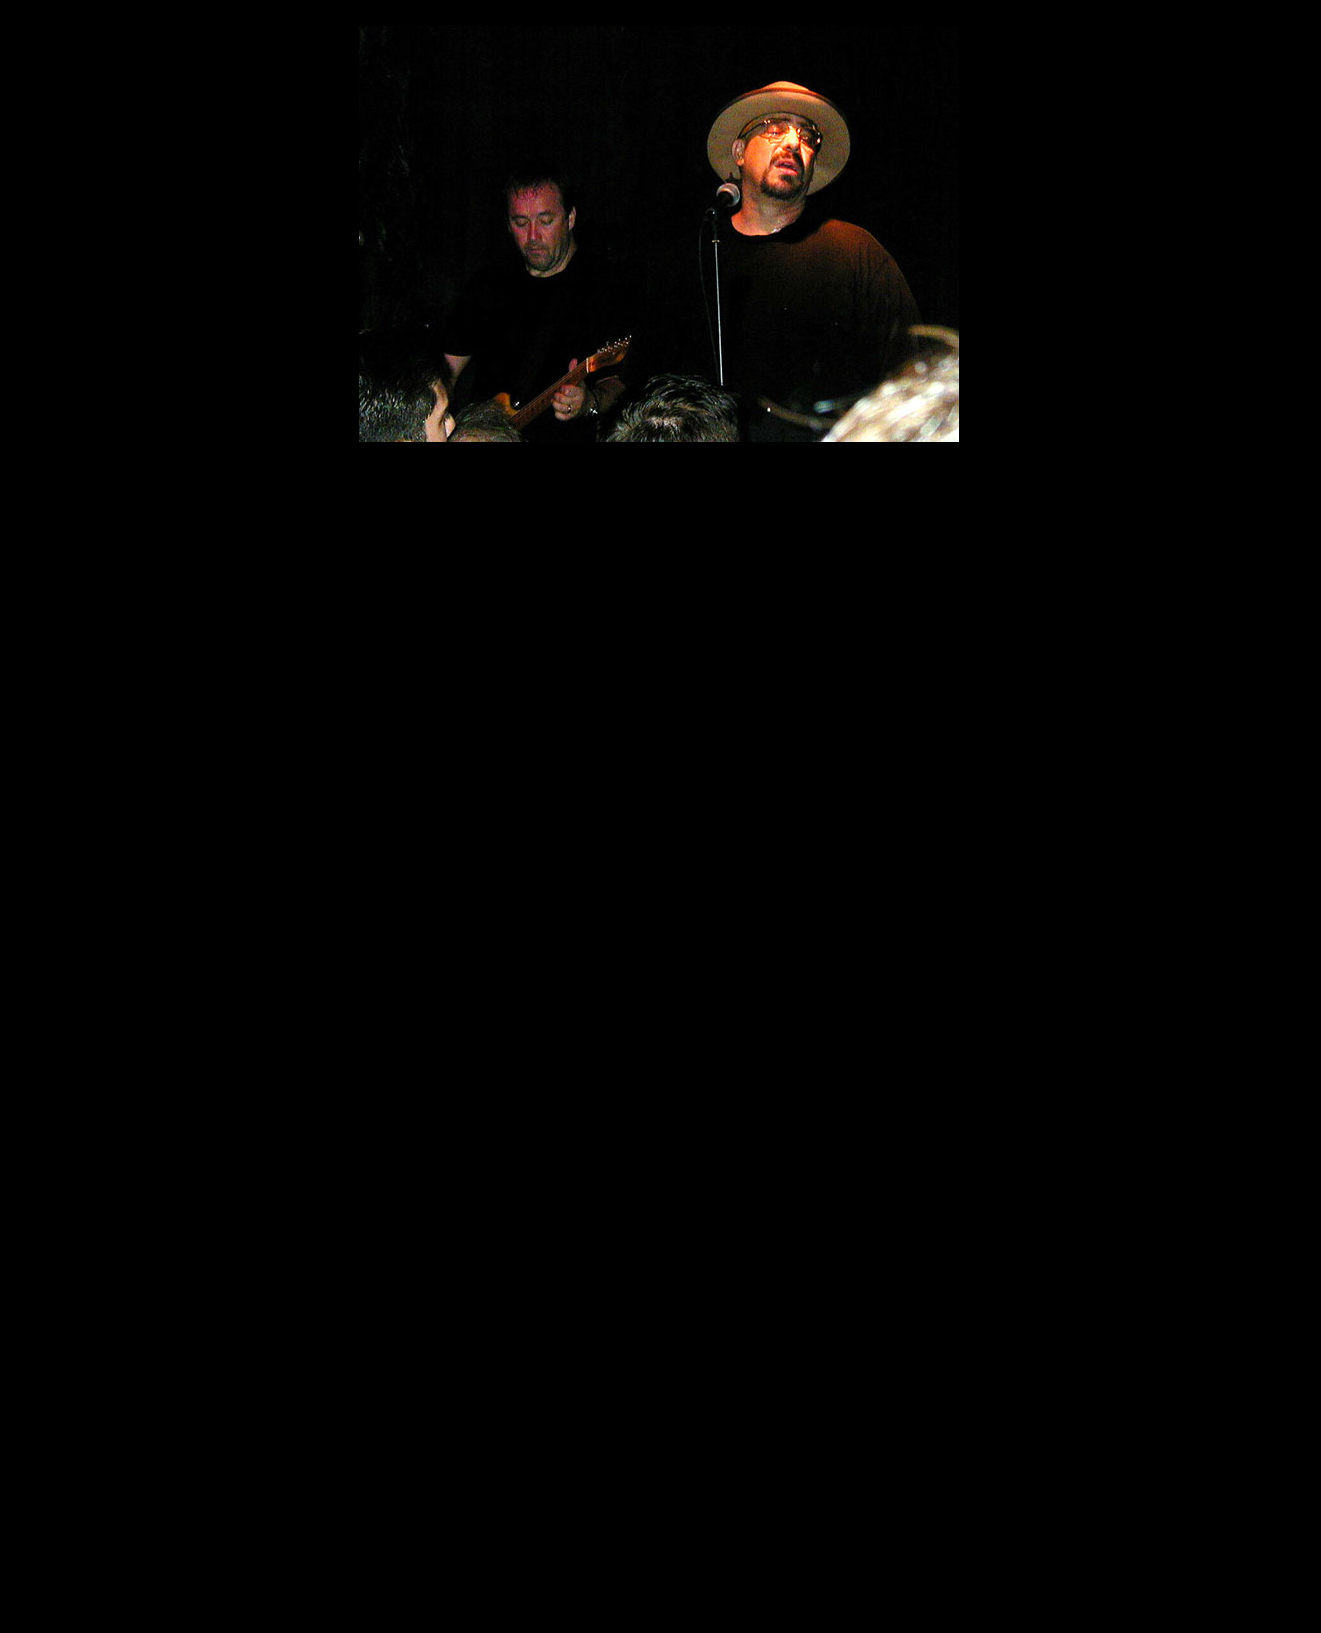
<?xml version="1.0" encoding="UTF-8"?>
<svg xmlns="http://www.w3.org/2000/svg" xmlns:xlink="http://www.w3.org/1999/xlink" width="1321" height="1633">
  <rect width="100%" height="100%" fill="#000000" />
  <image x="359" y="26" width="600" height="416" xlink:href="image1.png" />
</svg>
